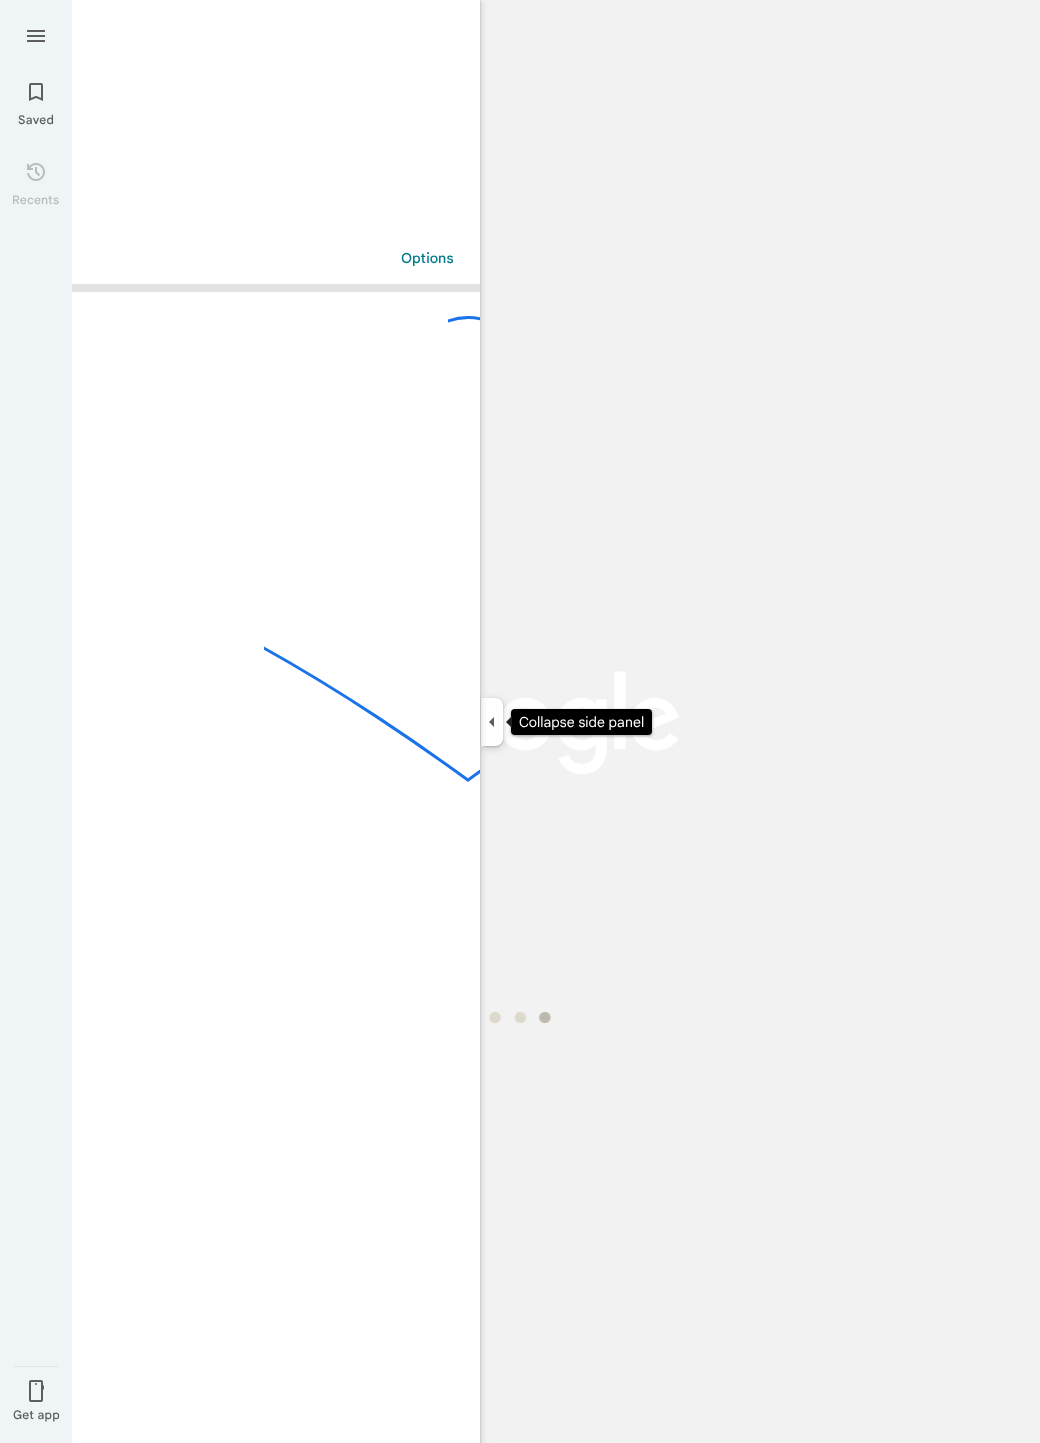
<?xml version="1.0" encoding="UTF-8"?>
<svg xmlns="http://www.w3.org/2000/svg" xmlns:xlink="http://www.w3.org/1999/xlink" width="1040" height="1443">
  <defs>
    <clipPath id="clip1"><rect x="448" y="316" width="32" height="1127" /></clipPath>
    <clipPath id="clip2"><rect x="264" y="316" width="204" height="1127" /></clipPath>
    <clipPath id="clip3"><rect x="468" y="316" width="12" height="1127" /></clipPath>
  </defs>
  <rect width="100%" height="100%" fill="#f2f2f2" />
  <image x="480" y="671" width="199" height="103" xlink:href="image5.png" />
  <rect x="478" y="698" width="27" height="52" rx="10" fill="#3c4043" fill-opacity="0.15" filter="blur(3px)" />
  <rect x="480" y="699" width="23" height="48" rx="8" fill="#3c4043" fill-opacity="0.3" filter="blur(1px)" />
  <path d="M 480 698 h 15 c 4.5 0 8 3.5 8 8 v 32 c 0 4.5 -3.5 8 -8 8 h -15 z" fill="#ffffff" />
  <rect x="480" y="698" width="1" height="48" fill="#e3e3e3" />
  <path d="M 494 727 l -5 -5 l 5 -5 z" fill="#5e5e5e" />
  <image x="489" y="1012" width="62" height="11" xlink:href="image6.png" />
  <rect x="70" width="412" height="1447" fill="#3c4043" fill-opacity="0.15" filter="blur(3px)" />
  <rect x="72" y="1" width="408" height="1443" fill="#3c4043" fill-opacity="0.3" filter="blur(1px)" />
  <rect width="72" height="1443" fill="#eff5f6" />
  <image x="27" y="30" width="18" height="12" xlink:href="image1.png" />
  <image x="29" y="83" width="14" height="18" xlink:href="image2.png" />
  <image x="27" y="163" width="18" height="18" xlink:href="image3.png" />
  <rect x="14" y="1366" width="44" height="1" fill="#e3e3e3" />
  <image x="29" y="1380" width="15" height="22" xlink:href="image4.png" />
  <rect x="72" width="408" height="1443" fill="#ffffff" />
  <rect x="72" y="284" width="408" height="8" fill="#e3e3e3" />
  <g clip-path="url(#clip1)">
    <path d="M 325 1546.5 c -38 -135 -59.5 -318 -59.5 -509 c 0 -191 21.5 -374 59.5 -509 c 38 -135 89.5 -211 143 -211 c 53.5 0 105 76 143 211 c 38 135 59.5 318 59.5 509 c 0 191 -21.5 374 -59.5 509" fill="none" stroke="#1a73e8" stroke-width="3" />
  </g>
  <g clip-path="url(#clip2)">
    <path d="M 170 600.5 c 128 58 282 159 428 282 c 146.5 122.5 273 256.5 352 372.5 c 79 116 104 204 69.5 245.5 c -34.5 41 -125.5 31.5 -253.5 -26" fill="none" stroke="#1a73e8" stroke-width="3" />
  </g>
  <g clip-path="url(#clip3)">
    <path d="M 170 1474.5 c -128 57.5 -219 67 -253.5 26 c -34.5 -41.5 -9.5 -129.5 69.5 -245.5 c 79 -116 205.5 -250 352 -372.5 c 146 -123 300 -224 428 -282" fill="none" stroke="#1a73e8" stroke-width="3" />
  </g>
  <rect x="510" y="709" width="143" height="28" rx="5" fill="#3c4043" fill-opacity="0.15" filter="blur(1.5px)" />
  <rect x="511" y="710" width="141" height="26" rx="4" fill="#3c4043" fill-opacity="0.3" filter="blur(1px)" />
  <rect x="511" y="709" width="141" height="26" rx="4" fill="#000000" />
  <path d="M 512 716 v 12 l -6 -6 z" fill="#1f1f1f" />
  <text x="18" y="124" style="font-family: Google Sans; font-size: 12px; font-weight: 500; letter-spacing: 0.25px; fill: #5e5e5e">Saved</text>
  <text x="12" y="204" style="font-family: Google Sans; font-size: 12px; font-weight: 500; letter-spacing: 0.25px; fill: #b8bcbc">Recents</text>
  <text x="13" y="1419" style="font-family: Google Sans; font-size: 12px; font-weight: 500; letter-spacing: 0.25px; fill: #5e5e5e">Get app</text>
  <text x="401" y="263" style="font-family: Google Sans; font-size: 14px; font-weight: 500; letter-spacing: 0.1px; fill: #007b8b">Options</text>
  <text x="519" y="727" style="font-family: Google Sans; font-size: 14px; letter-spacing: 0.1px; fill: #ffffff">Collapse side panel</text>
</svg>
